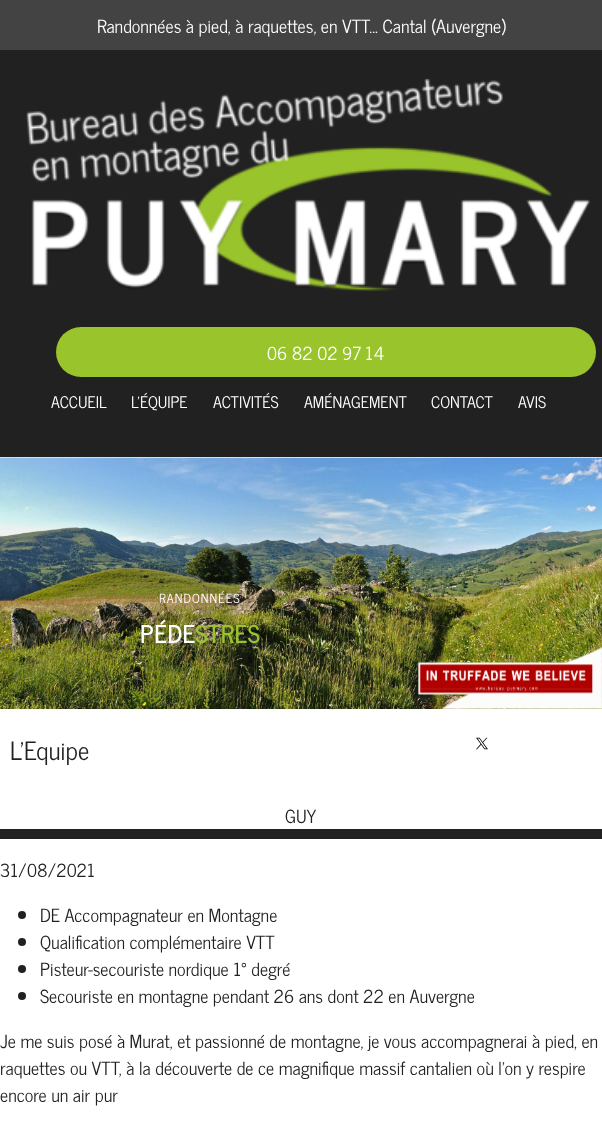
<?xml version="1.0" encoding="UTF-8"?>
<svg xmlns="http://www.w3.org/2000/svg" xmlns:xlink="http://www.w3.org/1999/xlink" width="602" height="1124">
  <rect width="100%" height="100%" fill="#ffffff" />
  <rect y="50" width="602" height="407" fill="#212121" />
  <rect y="457" width="602" height="1" fill="#dedede" />
  <rect width="602" height="50" fill="#434343" />
  <image x="26" y="78" width="565" height="213" xlink:href="image1.png" />
  <rect x="56" y="327" width="540" height="50" rx="25" fill="#99c42c" />
  <image x="0" y="458" width="602" height="251" xlink:href="image2.png" />
  <image x="418" y="646" width="184" height="63" xlink:href="image3.png" />
  <image x="476" y="737" width="12" height="13" xlink:href="image4.png" />
  <rect y="829" width="602" height="10" fill="#212121" />
  <circle cx="22" cy="915" r="4" fill="#212121" />
  <circle cx="22" cy="942" r="4" fill="#212121" />
  <circle cx="22" cy="969" r="4" fill="#212121" />
  <circle cx="22" cy="996" r="4" fill="#212121" />
  <text x="97" y="33" style="font-family: News Cycle; font-size: 18px; fill: #ffffff">Randonnées à pied, à raquettes, en VTT... Cantal (Auvergne)</text>
  <text x="267" y="360" style="font-family: News Cycle; font-size: 18px; fill: #ffffff">06 82 02 97 14</text>
  <text x="51" y="408" style="font-family: News Cycle; font-size: 16px; fill: #ffffff">ACCUEIL</text>
  <text x="131" y="408" style="font-family: News Cycle; font-size: 16px; fill: #ffffff">L'ÉQUIPE</text>
  <text x="213" y="408" style="font-family: News Cycle; font-size: 16px; fill: #ffffff">ACTIVITÉS</text>
  <text x="304" y="408" style="font-family: News Cycle; font-size: 16px; fill: #ffffff">AMÉNAGEMENT</text>
  <text x="431" y="408" style="font-family: News Cycle; font-size: 16px; fill: #ffffff">CONTACT</text>
  <text x="518" y="408" style="font-family: News Cycle; font-size: 16px; fill: #ffffff">AVIS</text>
  <text x="159" y="603" style="font-family: News Cycle; font-size: 12.5px; letter-spacing: 1.1px; fill: #ffffff">RANDONNÉES</text>
  <text x="140" y="643" style="font-family: News Cycle; font-size: 23.5px; font-weight: bold; letter-spacing: 1.1px; fill: #ffffff">PÉDE</text>
  <text x="195" y="643" style="font-family: News Cycle; font-size: 23.5px; font-weight: bold; letter-spacing: 1.1px; fill: #99c42c">STRES</text>
  <text x="10" y="760" style="font-family: News Cycle; font-size: 25px; fill: #212121">L'Equipe</text>
  <text x="285" y="823" style="font-family: News Cycle; font-size: 18px; fill: #212121">GUY</text>
  <text x="0" y="877" style="font-family: News Cycle; font-size: 18px; fill: #212121">31/08/2021</text>
  <text x="40" y="922" style="font-family: News Cycle; font-size: 18px; fill: #212121">DE Accompagnateur en Montagne</text>
  <text x="40" y="949" style="font-family: News Cycle; font-size: 18px; fill: #212121">Qualification complémentaire VTT</text>
  <text x="40" y="976" style="font-family: News Cycle; font-size: 18px; fill: #212121">Pisteur-secouriste nordique 1° degré</text>
  <text x="40" y="1003" style="font-family: News Cycle; font-size: 18px; fill: #212121">Secouriste en montagne pendant 26 ans dont 22 en Auvergne</text>
  <text x="0" y="1048" style="font-family: News Cycle; font-size: 18px; fill: #212121">Je me suis posé à Murat, et passionné de montagne, je vous accompagnerai à pied, en</text>
  <text x="0" y="1075" style="font-family: News Cycle; font-size: 18px; fill: #212121">raquettes ou VTT, à la découverte de ce magnifique massif cantalien où l'on y respire</text>
  <text x="0" y="1102" style="font-family: News Cycle; font-size: 18px; fill: #212121">encore un air pur</text>
</svg>
